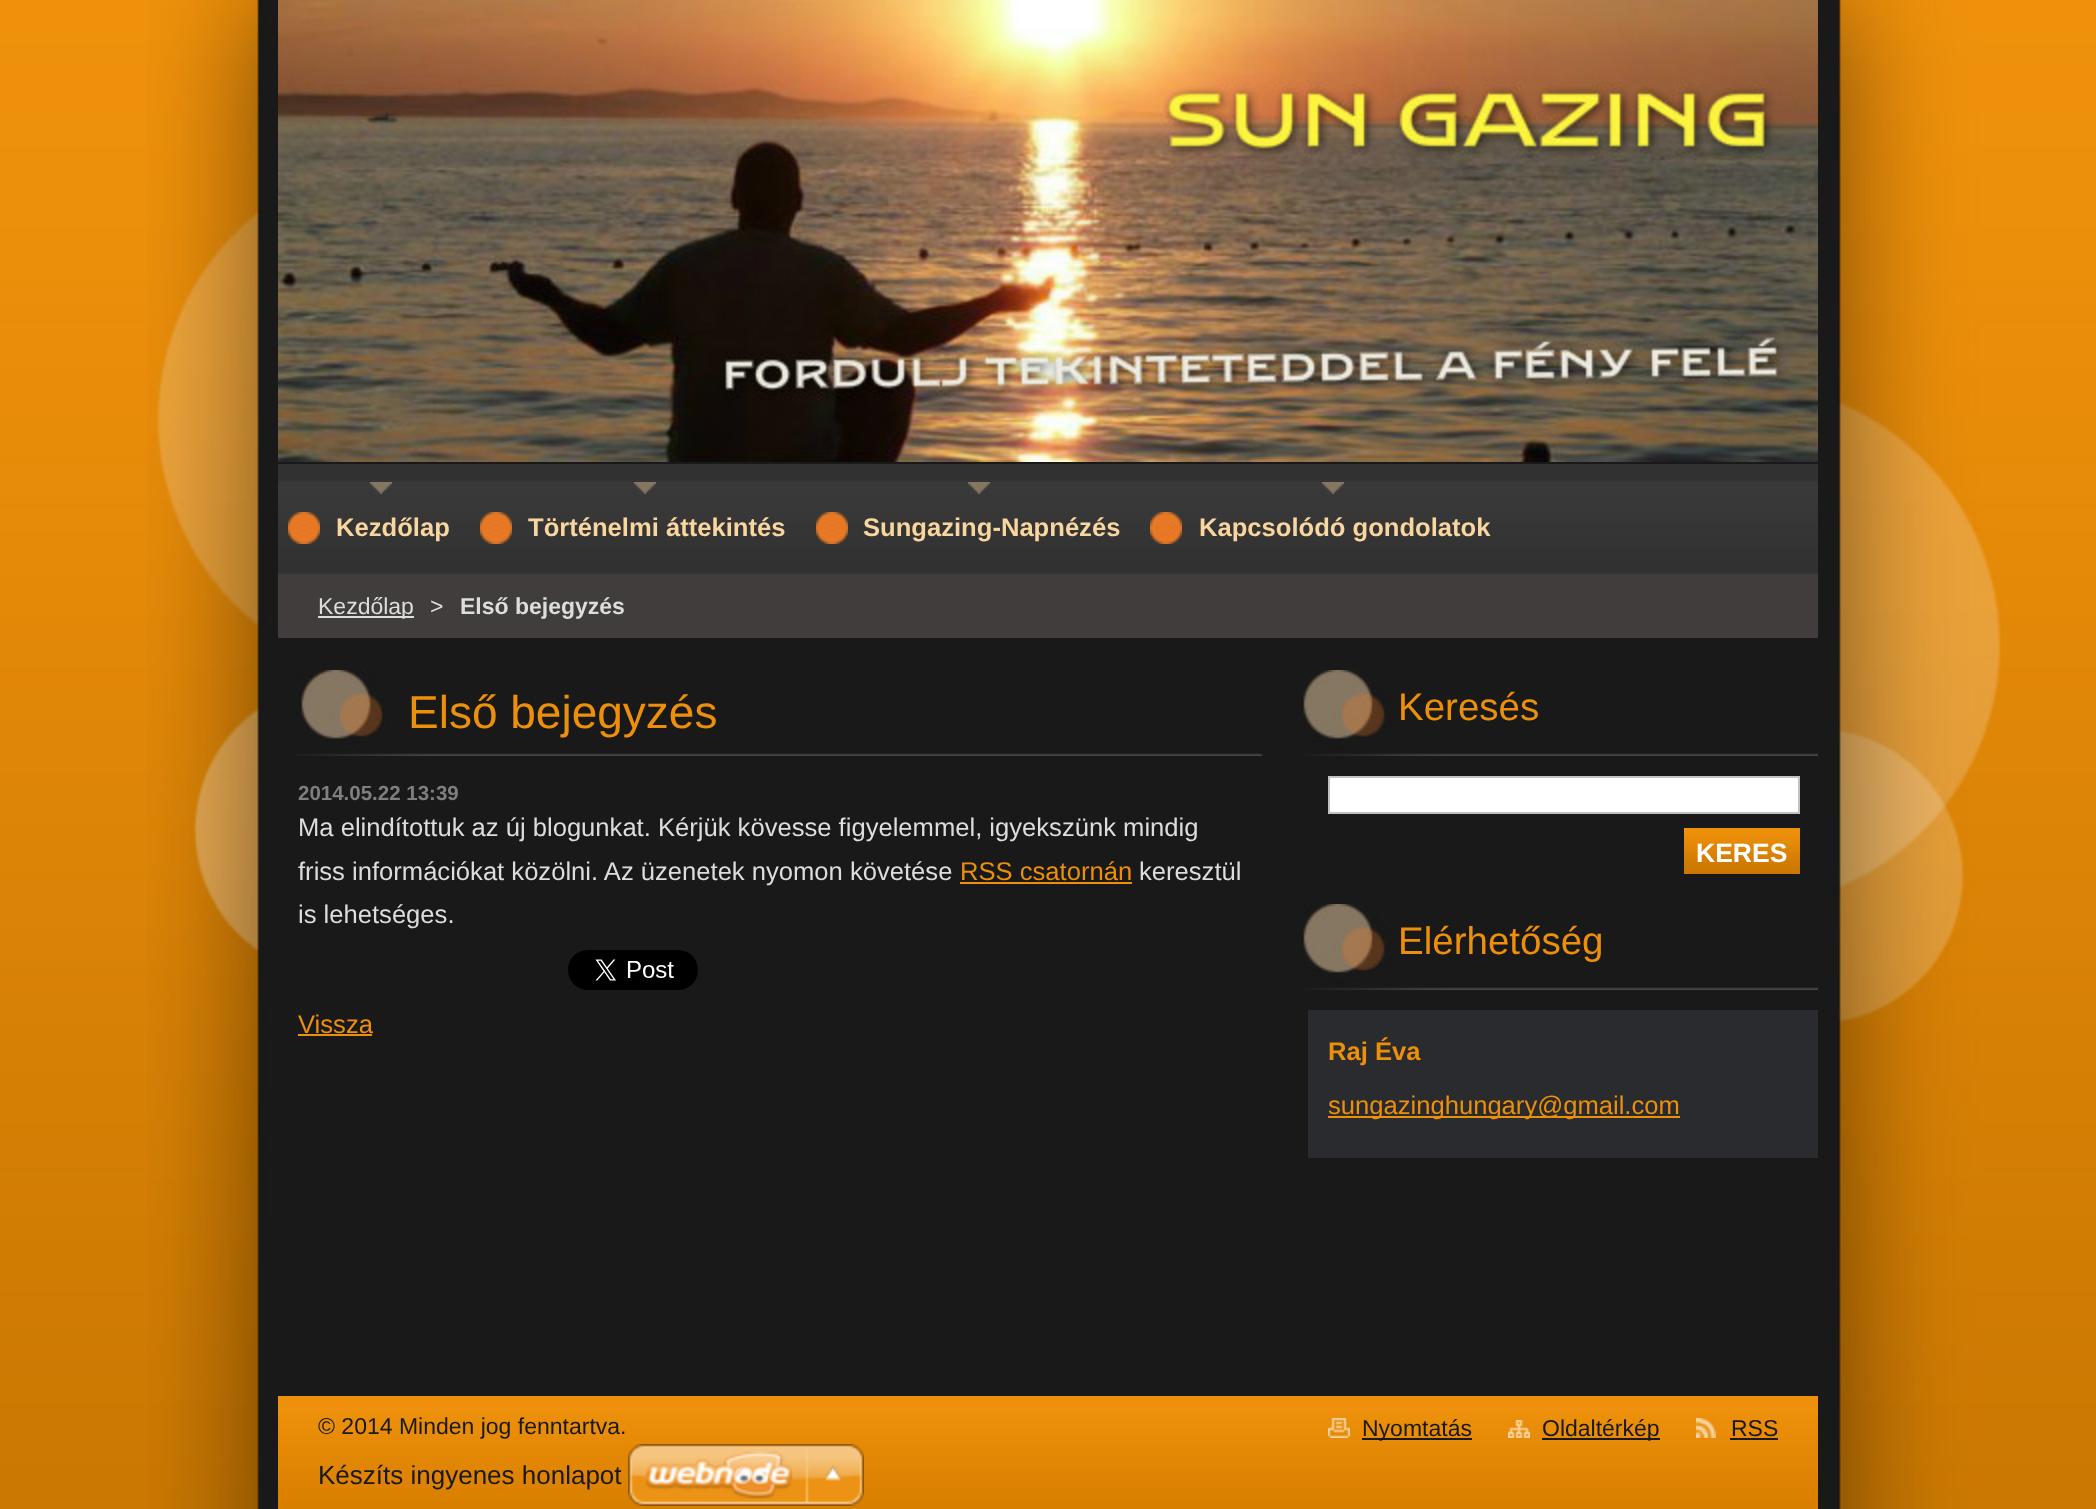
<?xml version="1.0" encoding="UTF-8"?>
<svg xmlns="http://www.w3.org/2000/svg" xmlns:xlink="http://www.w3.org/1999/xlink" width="2096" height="1509">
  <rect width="100%" height="100%" fill="#ffffff" />
  <image x="0" y="0" width="2096" height="1509" xlink:href="image1.png" />
  <image x="147" y="0" width="1859" height="1509" xlink:href="image2.png" />
  <rect x="278" y="464" width="1540" height="16" fill="#313131" />
  <image x="278" y="0" width="1540" height="462" xlink:href="image3.png" />
  <image x="278" y="482" width="1540" height="90" xlink:href="image4.png" />
  <rect x="278" y="480" width="1540" height="2" fill="#343434" />
  <rect x="278" y="572" width="1540" height="2" fill="#323537" />
  <image x="288" y="512" width="32" height="32" xlink:href="image5.png" />
  <image x="370" y="482" width="22" height="12" xlink:href="image6.png" />
  <image x="480" y="512" width="32" height="32" xlink:href="image5.png" />
  <image x="634" y="482" width="22" height="12" xlink:href="image6.png" />
  <image x="816" y="512" width="32" height="32" xlink:href="image5.png" />
  <image x="968" y="482" width="22" height="12" xlink:href="image6.png" />
  <image x="1150" y="512" width="32" height="32" xlink:href="image5.png" />
  <image x="1322" y="482" width="22" height="12" xlink:href="image6.png" />
  <rect x="278" y="574" width="1540" height="64" fill="#413d3d" />
  <rect x="318" y="616" width="96" height="2" fill="#dddddd" />
  <image x="295" y="670" width="968" height="86" xlink:href="image7.png" />
  <rect x="960" y="882" width="172" height="2" fill="#ec8f0a" />
  <image x="568" y="950" width="130" height="40" xlink:href="image8.png" />
  <rect x="298" y="1034" width="74" height="2" fill="#ec8f0a" />
  <image x="1302" y="670" width="516" height="86" xlink:href="image9.png" />
  <rect x="1329" y="777" width="470" height="36" fill="#ffffff" stroke="#c1c1c1" stroke-width="2" />
  <image x="1684" y="828" width="116" height="46" xlink:href="image10.png" />
  <image x="1302" y="904" width="516" height="86" xlink:href="image9.png" />
  <rect x="1308" y="1010" width="510" height="148" fill="#292b2e" />
  <rect x="1328" y="1116" width="352" height="2" fill="#ec8f0a" />
  <image x="278" y="1396" width="1540" height="113" xlink:href="image11.png" />
  <image x="1328" y="1418" width="22" height="20" xlink:href="image12.png" />
  <rect x="1362" y="1438" width="110" height="2" fill="#191919" />
  <image x="1508" y="1420" width="22" height="18" xlink:href="image13.png" />
  <rect x="1542" y="1438" width="118" height="2" fill="#191919" />
  <image x="1696" y="1418" width="20" height="20" xlink:href="image14.png" />
  <rect x="1730" y="1438" width="48" height="2" fill="#191919" />
  <image x="628" y="1444" width="236" height="62" xlink:href="image15.png" />
  <text x="336" y="536" style="font-family: Liberation Sans; font-size: 25.6px; font-weight: bold; fill: #f9d59f">Kezdőlap</text>
  <text x="528" y="536" style="font-family: Liberation Sans; font-size: 25.6px; font-weight: bold; fill: #f9d59f">Történelmi áttekintés</text>
  <text x="863" y="536" style="font-family: Liberation Sans; font-size: 25.6px; font-weight: bold; fill: #f9d59f">Sungazing-Napnézés</text>
  <text x="1199" y="536" style="font-family: Liberation Sans; font-size: 25.6px; font-weight: bold; fill: #f9d59f">Kapcsolódó gondolatok</text>
  <text x="318" y="614" style="font-family: Liberation Sans; font-size: 23px; fill: #dddddd">Kezdőlap</text>
  <text x="430" y="614" style="font-family: Liberation Sans; font-size: 23px; fill: #dddddd">&gt;</text>
  <text x="460" y="614" style="font-family: Liberation Sans; font-size: 23px; font-weight: bold; fill: #dddddd">Első bejegyzés</text>
  <text x="408" y="728" style="font-family: Liberation Sans; font-size: 46px; fill: #ec8f0a">Első bejegyzés</text>
  <text x="298" y="800" style="font-family: Liberation Sans; font-size: 20.5px; font-weight: bold; fill: #7f7f7f">2014.05.22 13:39</text>
  <text x="298" y="836" style="font-family: Liberation Sans; font-size: 25.6px; fill: #dddddd">Ma elindítottuk az új blogunkat. Kérjük kövesse figyelemmel, igyekszünk mindig</text>
  <text x="298" y="880" style="font-family: Liberation Sans; font-size: 25.6px; fill: #dddddd">friss információkat közölni. Az üzenetek nyomon követése</text>
  <text x="960" y="880" style="font-family: Liberation Sans; font-size: 25.6px; fill: #ec8f0a">RSS csatornán</text>
  <text x="1139" y="880" style="font-family: Liberation Sans; font-size: 25.6px; fill: #dddddd">keresztül</text>
  <text x="298" y="923" style="font-family: Liberation Sans; font-size: 25.6px; fill: #dddddd">is lehetséges.</text>
  <text x="298" y="1033" style="font-family: Liberation Sans; font-size: 25.6px; fill: #ec8f0a">Vissza</text>
  <text x="1398" y="720" style="font-family: Liberation Sans; font-size: 38.5px; fill: #ec8f0a">Keresés</text>
  <text x="1696" y="862" style="font-family: Liberation Sans; font-size: 26.5px; font-weight: bold; fill: #ffffff">KERES</text>
  <text x="1398" y="954" style="font-family: Liberation Sans; font-size: 38.5px; fill: #ec8f0a">Elérhetőség</text>
  <text x="1328" y="1060" style="font-family: Liberation Sans; font-size: 25.6px; font-weight: bold; fill: #ec8f0a">Raj Éva</text>
  <text x="1328" y="1114" style="font-family: Liberation Sans; font-size: 25.6px; fill: #ec8f0a">sungazinghungary@gmail.com</text>
  <text x="318" y="1434" style="font-family: Liberation Sans; font-size: 23px; fill: #191919">© 2014 Minden jog fenntartva.</text>
  <text x="1362" y="1436" style="font-family: Liberation Sans; font-size: 23px; fill: #191919">Nyomtatás</text>
  <text x="1542" y="1436" style="font-family: Liberation Sans; font-size: 23px; fill: #191919">Oldaltérkép</text>
  <text x="1731" y="1436" style="font-family: Liberation Sans; font-size: 23px; fill: #191919">RSS</text>
  <text x="318" y="1484" style="font-family: Liberation Sans; font-size: 26px; fill: #191919">Készíts ingyenes honlapot</text>
</svg>
